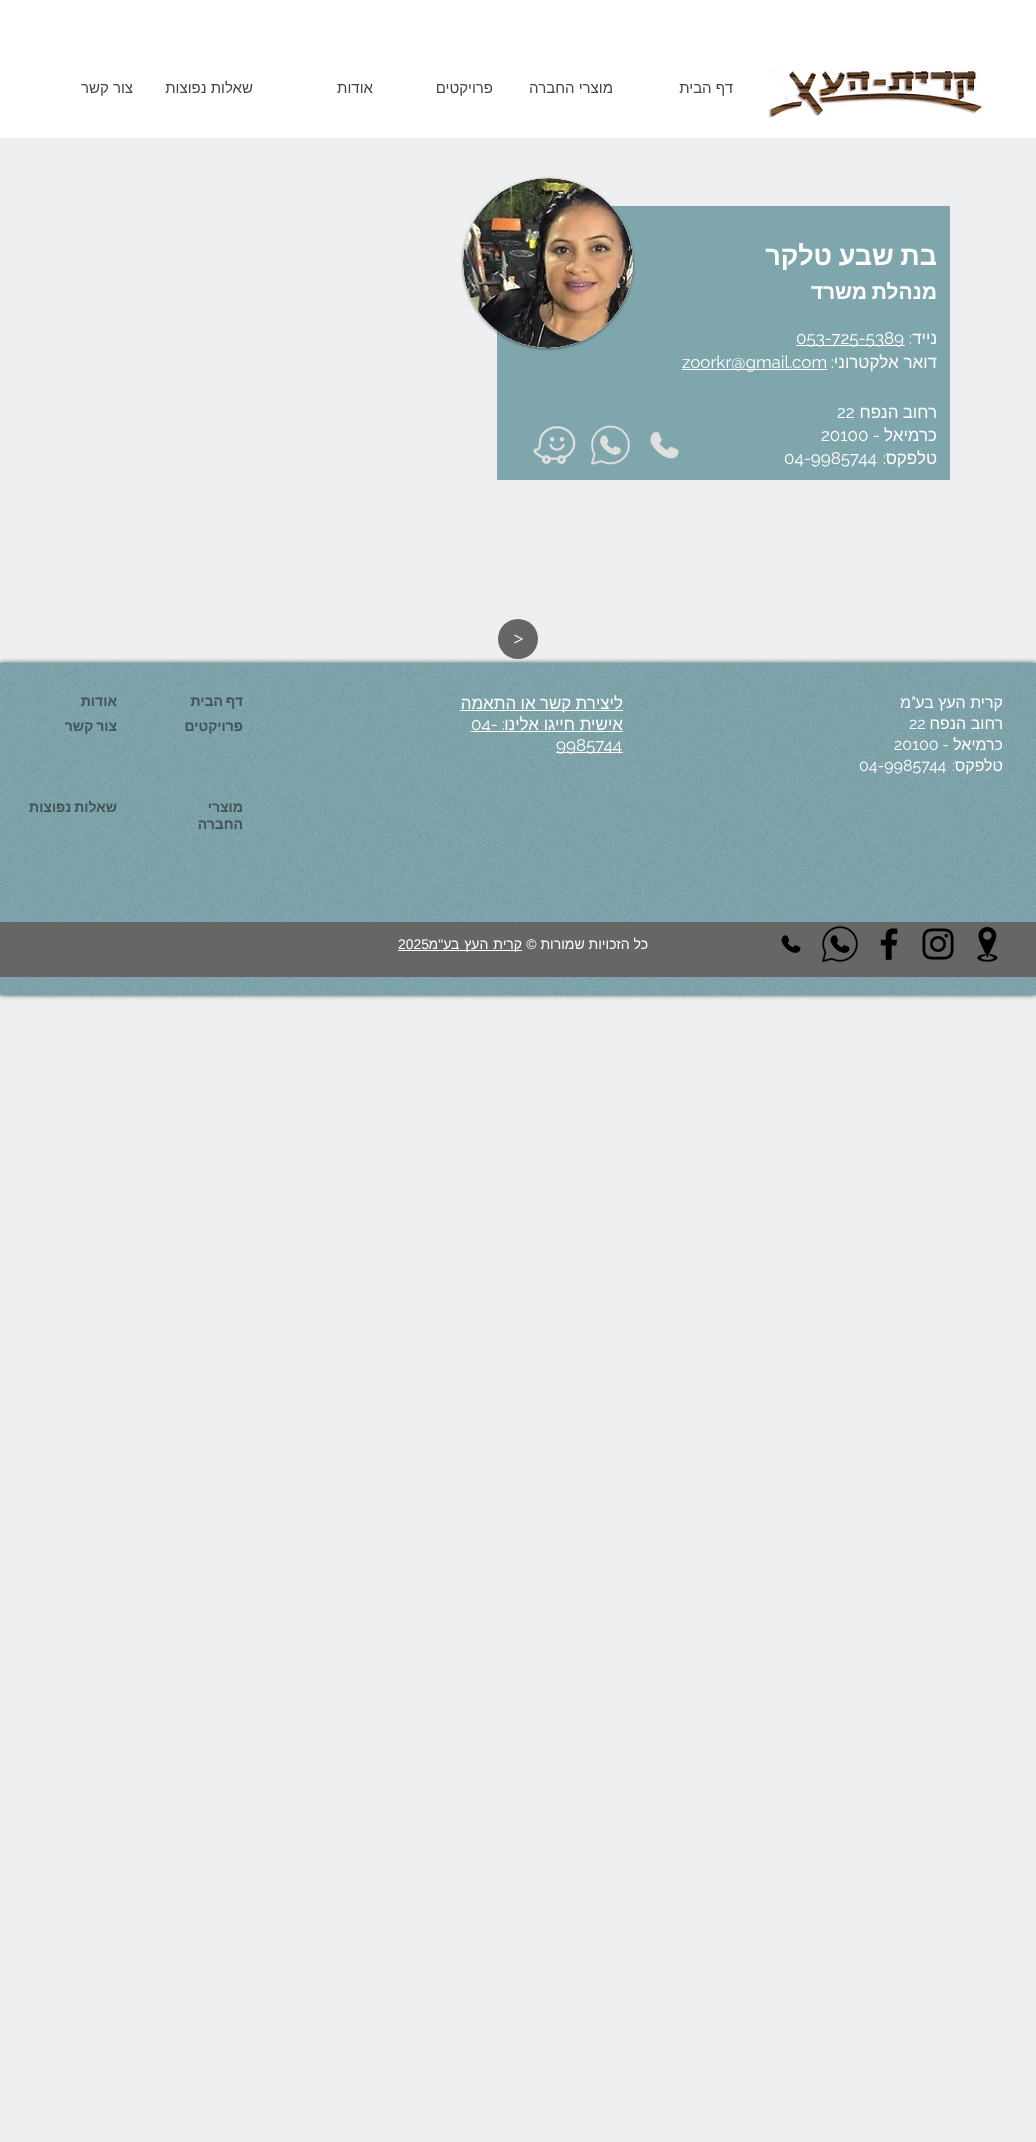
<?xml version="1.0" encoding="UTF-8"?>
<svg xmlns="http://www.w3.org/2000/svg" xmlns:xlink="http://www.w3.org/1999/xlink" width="1036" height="2142">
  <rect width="100%" height="100%" fill="#edeff0" />
  <rect width="1036" height="138" fill="#ffffff" />
  <image x="768" y="67" width="216" height="51" xlink:href="image1.png" />
  <rect x="497" y="206" width="453" height="274" fill="#80a6ad" />
  <rect x="463" y="179" width="170" height="170" rx="85" fill="#000000" fill-opacity="0.5" filter="blur(1.5px)" />
  <circle cx="548" cy="263" r="85" fill="#ffffff" />
  <image x="463" y="178" width="170" height="170" xlink:href="image2.png" />
  <rect x="796" y="345" width="109" height="1" fill="#ffffff" />
  <rect x="682" y="369" width="145" height="1" fill="#ffffff" />
  <image x="650" y="432" width="29" height="27" xlink:href="image3.png" />
  <image x="590" y="425" width="40" height="40" xlink:href="image4.png" />
  <image x="533" y="426" width="43" height="38" xlink:href="image5.png" />
  <circle cx="518" cy="639" r="20" fill="#666666" />
  <rect y="663" width="1036" height="332" fill="#000000" fill-opacity="0.7" filter="blur(2.5px)" />
  <rect y="663" width="1036" height="332" fill="#80a6ad" />
  <image x="0" y="663" width="1036" height="332" xlink:href="image6.png" />
  <rect x="460" y="710" width="163" height="1" fill="#ffffff" />
  <rect x="471" y="731" width="152" height="1" fill="#ffffff" />
  <rect x="556" y="752" width="67" height="1" fill="#ffffff" />
  <rect y="922" width="1036" height="55" fill="#666666" />
  <image x="977" y="926" width="21" height="36" xlink:href="image7.png" />
  <image x="922" y="928" width="32" height="32" xlink:href="image8.png" />
  <image x="880" y="928" width="18" height="32" xlink:href="image9.png" />
  <image x="822" y="926" width="36" height="36" xlink:href="image10.png" />
  <image x="781" y="935" width="20" height="18" xlink:href="image11.png" />
  <rect x="398" y="950" width="124" height="1" fill="#ffffff" />
  <text x="733" y="93" style="font-family: Liberation Sans; font-size: 15px; direction: rtl; fill: #444444">דף הבית</text>
  <text x="613" y="93" style="font-family: Liberation Sans; font-size: 15px; direction: rtl; fill: #444444">מוצרי החברה</text>
  <text x="493" y="93" style="font-family: Liberation Sans; font-size: 15px; direction: rtl; fill: #444444">פרויקטים</text>
  <text x="373" y="93" style="font-family: Liberation Sans; font-size: 15px; direction: rtl; fill: #444444">אודות</text>
  <text x="253" y="93" style="font-family: Liberation Sans; font-size: 15px; direction: rtl; fill: #444444">שאלות נפוצות</text>
  <text x="133" y="93" style="font-family: Liberation Sans; font-size: 15px; direction: rtl; fill: #444444">צור קשר</text>
  <text x="937" y="265" word-spacing="-1" style="font-family: Liberation Sans; font-size: 27px; font-weight: bold; direction: rtl; fill: #ffffff">בת שבע טלקר</text>
  <text x="937" y="299" word-spacing="-1" style="font-family: Liberation Sans; font-size: 21px; font-weight: bold; direction: rtl; fill: #ffffff">מנהלת משרד</text>
  <text x="937" y="344" style="font-family: Liberation Sans; font-size: 17px; direction: rtl; fill: #ffffff">נייד</text>
  <text x="912" y="344" style="font-family: Raleway; font-size: 17px; direction: rtl; fill: #ffffff">:</text>
  <text x="796" y="344" style="font-family: Raleway; font-size: 17px; fill: #ffffff">053-725-5389</text>
  <text x="937" y="368" style="font-family: Liberation Sans; font-size: 17px; direction: rtl; fill: #ffffff">דואר אלקטרוני</text>
  <text x="834" y="368" style="font-family: Raleway; font-size: 17px; direction: rtl; fill: #ffffff">:</text>
  <text x="682" y="368" style="font-family: Raleway; font-size: 17px; fill: #ffffff">zoorkr@gmail.com</text>
  <text x="937" y="418" word-spacing="-0.5" style="font-family: Liberation Sans; font-size: 17px; direction: rtl; fill: #ffffff">רחוב הנפח</text>
  <text x="837" y="418" style="font-family: Raleway; font-size: 17px; fill: #ffffff">22</text>
  <text x="937" y="441" style="font-family: Liberation Sans; font-size: 17px; direction: rtl; fill: #ffffff">כרמיאל</text>
  <text x="880" y="441" style="font-family: Raleway; font-size: 17px; direction: rtl; fill: #ffffff">-</text>
  <text x="821" y="441" style="font-family: Raleway; font-size: 17px; fill: #ffffff">20100</text>
  <text x="937" y="464" style="font-family: Liberation Sans; font-size: 17px; direction: rtl; fill: #ffffff">טלפקס</text>
  <text x="886" y="464" style="font-family: Raleway; font-size: 17px; direction: rtl; fill: #ffffff">:</text>
  <text x="784" y="464" style="font-family: Raleway; font-size: 17px; fill: #ffffff">04-9985744</text>
  <text x="514" y="645" style="font-family: 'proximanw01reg'; font-size: 18px; fill: #ffffff">&gt;</text>
  <text x="1003" y="708" style="font-family: Liberation Sans; font-size: 16px; direction: rtl; fill: #ffffff">קרית העץ בע</text>
  <text x="916" y="708" style="font-family: Raleway; font-size: 16px; direction: rtl; fill: #ffffff">"</text>
  <text x="911" y="708" style="font-family: Liberation Sans; font-size: 16px; direction: rtl; fill: #ffffff">מ</text>
  <text x="1003" y="729" style="font-family: Liberation Sans; font-size: 16px; direction: rtl; fill: #ffffff">רחוב הנפח</text>
  <text x="909" y="729" style="font-family: Raleway; font-size: 16px; fill: #ffffff">22</text>
  <text x="1003" y="750" style="font-family: Liberation Sans; font-size: 16px; direction: rtl; fill: #ffffff">כרמיאל</text>
  <text x="949" y="750" style="font-family: Raleway; font-size: 16px; direction: rtl; fill: #ffffff">-</text>
  <text x="894" y="750" style="font-family: Raleway; font-size: 16px; fill: #ffffff">20100</text>
  <text x="1003" y="771" style="font-family: Liberation Sans; font-size: 16px; direction: rtl; fill: #ffffff">טלפקס</text>
  <text x="955" y="771" style="font-family: Raleway; font-size: 16px; direction: rtl; fill: #ffffff">:</text>
  <text x="859" y="771" style="font-family: Raleway; font-size: 16px; fill: #ffffff">04-9985744</text>
  <text x="623" y="709" word-spacing="-0.5" style="font-family: Liberation Sans; font-size: 17px; direction: rtl; fill: #ffffff">ליצירת קשר או התאמה</text>
  <text x="623" y="730" style="font-family: Liberation Sans; font-size: 17px; direction: rtl; fill: #ffffff">אישית חייגו אלינו</text>
  <text x="505" y="730" style="font-family: Raleway; font-size: 17px; direction: rtl; fill: #ffffff">:</text>
  <text x="471" y="730" style="font-family: Raleway; font-size: 17px; fill: #ffffff">04-</text>
  <text x="556" y="751" style="font-family: Raleway; font-size: 17px; fill: #ffffff">9985744</text>
  <text x="243" y="706" word-spacing="-1" style="font-family: Liberation Sans; font-size: 14px; font-weight: bold; direction: rtl; fill: #405357">דף הבית</text>
  <text x="117" y="706" style="font-family: Liberation Sans; font-size: 14px; font-weight: bold; direction: rtl; fill: #405357">אודות</text>
  <text x="243" y="731" style="font-family: Liberation Sans; font-size: 14px; font-weight: bold; direction: rtl; fill: #405357">פרויקטים</text>
  <text x="117" y="731" word-spacing="-1" style="font-family: Liberation Sans; font-size: 14px; font-weight: bold; direction: rtl; fill: #405357">צור קשר</text>
  <text x="243" y="812" style="font-family: Liberation Sans; font-size: 14px; font-weight: bold; direction: rtl; fill: #405357">מוצרי</text>
  <text x="243" y="829" style="font-family: Liberation Sans; font-size: 14px; font-weight: bold; direction: rtl; fill: #405357">החברה</text>
  <text x="117" y="812" word-spacing="-1" style="font-family: Liberation Sans; font-size: 14px; font-weight: bold; direction: rtl; fill: #405357">שאלות נפוצות</text>
  <text x="648" y="949" style="font-family: Liberation Sans; font-size: 14px; direction: rtl; fill: #ffffff">כל הזכויות שמורות ©</text>
  <text x="398" y="949" style="font-family: Liberation Sans; font-size: 14px; fill: #ffffff">2025</text>
  <text x="522" y="949" word-spacing="1" style="font-family: Liberation Sans; font-size: 14px; direction: rtl; fill: #ffffff">קרית העץ בע"מ</text>
</svg>
